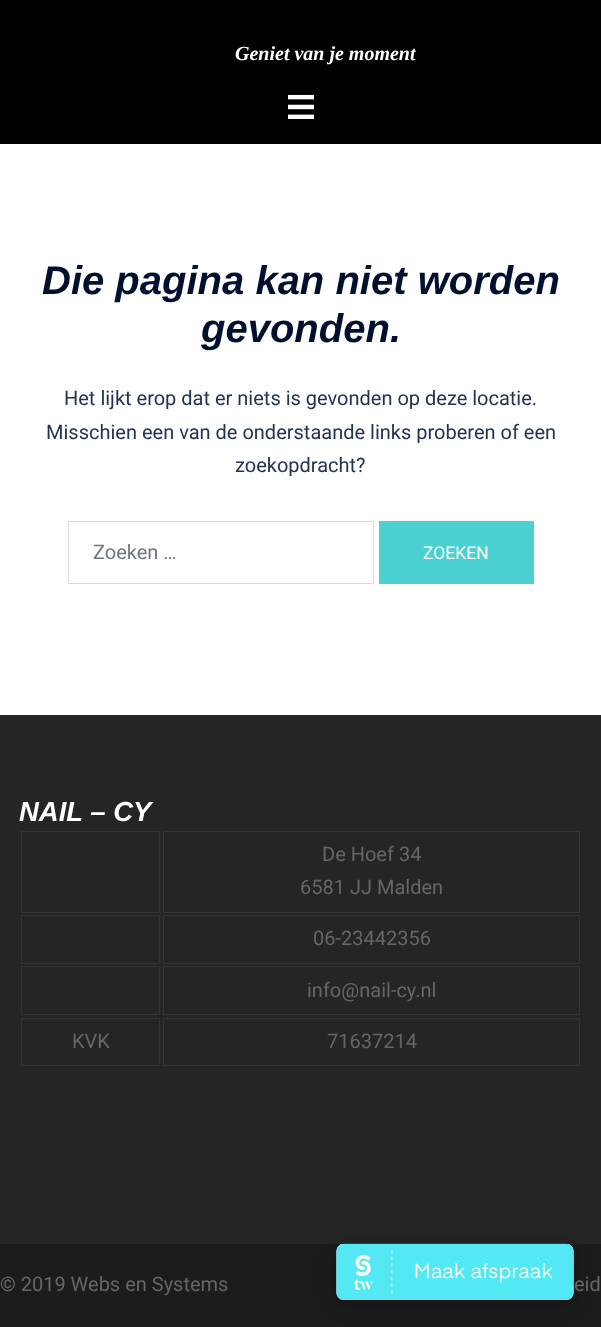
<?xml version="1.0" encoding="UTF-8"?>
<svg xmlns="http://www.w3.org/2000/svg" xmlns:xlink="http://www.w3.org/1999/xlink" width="601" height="1327">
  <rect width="100%" height="100%" fill="#ffffff" />
  <rect width="601" height="144" fill="#000000" />
  <image x="288" y="94" width="26" height="25" xlink:href="image1.png" />
  <rect x="68.5" y="521.5" width="305" height="62" fill="none" stroke="#dbdbdb" />
  <rect x="379" y="521" width="155" height="63" fill="#4bd1d1" />
  <rect y="715" width="601" height="529" fill="#252525" />
  <rect x="21.5" y="831.5" width="138" height="81" fill="none" stroke="#333333" />
  <rect x="163.5" y="831.5" width="416" height="81" fill="none" stroke="#333333" />
  <rect x="21.5" y="915.5" width="138" height="48" fill="none" stroke="#333333" />
  <rect x="163.5" y="915.5" width="416" height="48" fill="none" stroke="#333333" />
  <rect x="21.5" y="966.5" width="138" height="48" fill="none" stroke="#333333" />
  <rect x="163.5" y="966.5" width="416" height="48" fill="none" stroke="#333333" />
  <rect x="21.5" y="1018.5" width="138" height="47" fill="none" stroke="#333333" />
  <rect x="163.5" y="1018.5" width="416" height="47" fill="none" stroke="#333333" />
  <rect y="1244" width="601" height="83" fill="#1c1c1c" />
  <rect x="336" y="1248" width="238" height="56" rx="8" fill="#000000" fill-opacity="0.3" filter="blur(9.5px)" />
  <image x="336" y="1243" width="238" height="58" xlink:href="image2.png" />
  <text x="235" y="60" style="font-family: Liberation Serif; font-size: 20px; font-weight: bold; font-style: italic; fill: #ffffff">Geniet van je moment</text>
  <text x="42" y="294" style="font-family: Liberation Sans; font-size: 40px; font-weight: bold; font-style: italic; fill: #00102e">Die pagina kan niet worden</text>
  <text x="201" y="342" style="font-family: Liberation Sans; font-size: 40px; font-weight: bold; font-style: italic; fill: #00102e">gevonden.</text>
  <text x="64" y="405" style="font-family: Roboto; font-size: 20px; fill: #233452">Het lijkt erop dat er niets is gevonden op deze locatie.</text>
  <text x="46" y="439" style="font-family: Roboto; font-size: 20px; fill: #233452">Misschien een van de onderstaande links proberen of een</text>
  <text x="235" y="472" style="font-family: Roboto; font-size: 20px; fill: #233452">zoekopdracht?</text>
  <text x="93" y="559" style="font-family: Roboto; font-size: 20px; fill: #6d7685">Zoeken …</text>
  <text x="423" y="559" style="font-family: Roboto; font-size: 17.5px; fill: #ffffff">ZOEKEN</text>
  <text x="19" y="821" style="font-family: Liberation Sans; font-size: 27.5px; font-weight: bold; font-style: italic; fill: #ffffff">NAIL – CY</text>
  <text x="322" y="861" style="font-family: Roboto; font-size: 20px; fill: #666666">De Hoef 34</text>
  <text x="300" y="894" style="font-family: Roboto; font-size: 20px; fill: #666666">6581 JJ Malden</text>
  <text x="313" y="945" style="font-family: Roboto; font-size: 20px; fill: #666666">06-23442356</text>
  <text x="307" y="997" style="font-family: Roboto; font-size: 20px; fill: #666666">info@nail-cy.nl</text>
  <text x="72" y="1048" style="font-family: Roboto; font-size: 20px; fill: #666666">KVK</text>
  <text x="327" y="1048" style="font-family: Roboto; font-size: 20px; fill: #666666">71637214</text>
  <text x="0" y="1291" style="font-family: Roboto; font-size: 20px; fill: #666666">© 2019 Webs en Systems</text>
  <text x="574" y="1291" style="font-family: Roboto; font-size: 20px; fill: #666666">eid</text>
</svg>
